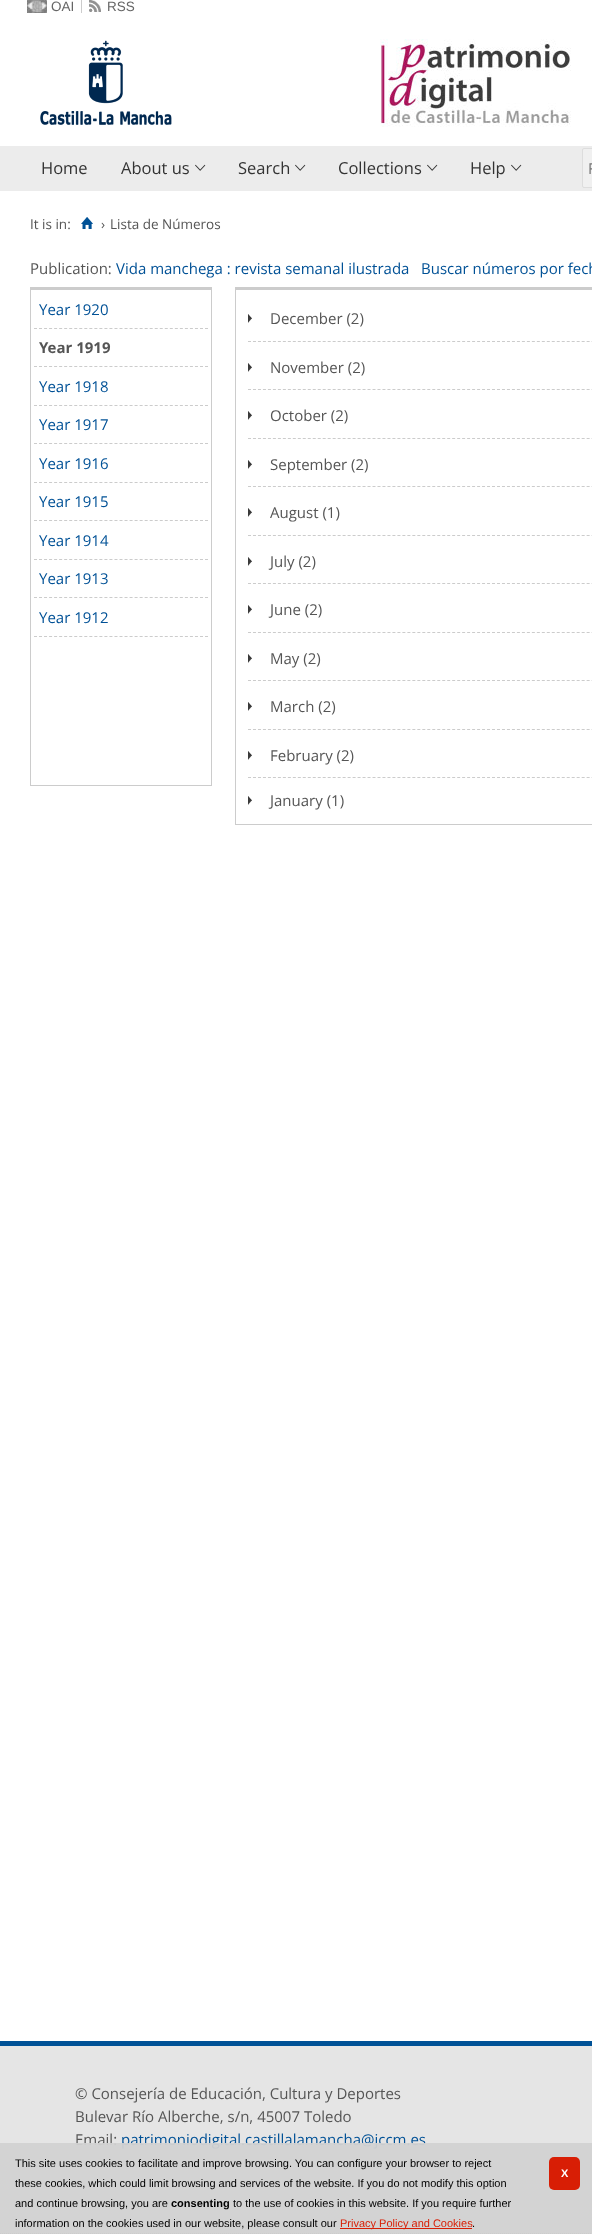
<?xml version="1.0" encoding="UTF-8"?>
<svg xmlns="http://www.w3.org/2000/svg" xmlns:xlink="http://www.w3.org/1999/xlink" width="592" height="2234">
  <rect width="100%" height="100%" fill="#ffffff" />
  <image x="27" y="0" width="20" height="13" xlink:href="image1.png" />
  <rect x="81" width="1" height="13" fill="#cccccc" />
  <image x="89" y="0" width="12" height="12" xlink:href="image2.png" />
  <image x="380" y="39" width="191" height="88" xlink:href="image3.png" />
  <image x="40" y="40" width="132" height="85" xlink:href="image4.png" />
  <rect y="146" width="592" height="45" fill="#ececec" />
  <image x="195" y="164" width="11" height="7" xlink:href="image5.png" />
  <image x="295" y="164" width="11" height="7" xlink:href="image5.png" />
  <image x="427" y="164" width="11" height="7" xlink:href="image5.png" />
  <image x="511" y="164" width="11" height="7" xlink:href="image5.png" />
  <rect x="582.5" y="148.5" width="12" height="39" rx="1.5" fill="#f0f0f0" stroke="#dddddd" />
  <image x="81" y="217" width="12" height="12" xlink:href="image6.png" />
  <rect x="30" y="287" width="182" height="3" fill="#cccccc" />
  <rect x="211" y="287" width="1" height="499" fill="#cccccc" />
  <rect x="30" y="785" width="182" height="1" fill="#cccccc" />
  <rect x="30" y="287" width="1" height="499" fill="#cccccc" />
  <path d="M 34 328.5 h 174" fill="none" stroke="#cccccc" stroke-dasharray="3 2.03" />
  <path d="M 34 366.5 h 174" fill="none" stroke="#cccccc" stroke-dasharray="3 2.03" />
  <path d="M 34 405.5 h 174" fill="none" stroke="#cccccc" stroke-dasharray="3 2.03" />
  <path d="M 34 443.5 h 174" fill="none" stroke="#cccccc" stroke-dasharray="3 2.03" />
  <path d="M 34 482.5 h 174" fill="none" stroke="#cccccc" stroke-dasharray="3 2.03" />
  <path d="M 34 520.5 h 174" fill="none" stroke="#cccccc" stroke-dasharray="3 2.03" />
  <path d="M 34 559.5 h 174" fill="none" stroke="#cccccc" stroke-dasharray="3 2.03" />
  <path d="M 34 597.5 h 174" fill="none" stroke="#cccccc" stroke-dasharray="3 2.03" />
  <path d="M 34 636.5 h 174" fill="none" stroke="#cccccc" stroke-dasharray="3 2.03" />
  <rect x="235" y="287" width="357" height="3" fill="#cccccc" />
  <rect x="235" y="824" width="357" height="1" fill="#cccccc" />
  <rect x="235" y="287" width="1" height="538" fill="#cccccc" />
  <path d="M 248 341.5 h 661" fill="none" stroke="#cccccc" stroke-dasharray="3 1.98" />
  <image x="248" y="314" width="4" height="9" xlink:href="image7.png" />
  <path d="M 248 389.5 h 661" fill="none" stroke="#cccccc" stroke-dasharray="3 1.98" />
  <image x="248" y="363" width="4" height="9" xlink:href="image7.png" />
  <path d="M 248 438.5 h 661" fill="none" stroke="#cccccc" stroke-dasharray="3 1.98" />
  <image x="248" y="411" width="4" height="9" xlink:href="image7.png" />
  <path d="M 248 486.5 h 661" fill="none" stroke="#cccccc" stroke-dasharray="3 1.98" />
  <image x="248" y="460" width="4" height="9" xlink:href="image7.png" />
  <path d="M 248 535.5 h 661" fill="none" stroke="#cccccc" stroke-dasharray="3 1.98" />
  <image x="248" y="508" width="4" height="9" xlink:href="image7.png" />
  <path d="M 248 583.5 h 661" fill="none" stroke="#cccccc" stroke-dasharray="3 1.98" />
  <image x="248" y="557" width="4" height="9" xlink:href="image7.png" />
  <path d="M 248 632.5 h 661" fill="none" stroke="#cccccc" stroke-dasharray="3 1.98" />
  <image x="248" y="605" width="4" height="9" xlink:href="image7.png" />
  <path d="M 248 680.5 h 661" fill="none" stroke="#cccccc" stroke-dasharray="3 1.98" />
  <image x="248" y="654" width="4" height="9" xlink:href="image7.png" />
  <path d="M 248 729.5 h 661" fill="none" stroke="#cccccc" stroke-dasharray="3 1.98" />
  <image x="248" y="702" width="4" height="9" xlink:href="image7.png" />
  <path d="M 248 777.5 h 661" fill="none" stroke="#cccccc" stroke-dasharray="3 1.98" />
  <image x="248" y="751" width="4" height="9" xlink:href="image7.png" />
  <image x="248" y="796" width="4" height="9" xlink:href="image7.png" />
  <rect y="2046" width="592" height="188" fill="#e5e5e5" />
  <rect y="2041" width="592" height="5" fill="#005196" />
  <text x="51" y="11" style="font-family: Liberation Sans; font-size: 13.5px; fill: #666666">OAI</text>
  <text x="107" y="11" style="font-family: Liberation Sans; font-size: 13.5px; fill: #666666">RSS</text>
  <text x="41" y="174" style="font-family: Open Sans; font-size: 16.5px; fill: #333333">Home</text>
  <text x="121" y="174" style="font-family: Open Sans; font-size: 16.5px; fill: #333333">About us</text>
  <text x="238" y="174" style="font-family: Open Sans; font-size: 16.5px; fill: #333333">Search</text>
  <text x="338" y="174" style="font-family: Open Sans; font-size: 16.5px; fill: #333333">Collections</text>
  <text x="470" y="174" style="font-family: Open Sans; font-size: 16.5px; fill: #333333">Help</text>
  <text x="588" y="174" style="font-family: Open Sans; font-size: 15px; fill: #757575">F</text>
  <text x="30" y="229" style="font-family: Open Sans; font-size: 13.5px; fill: #555555">It is in:</text>
  <text x="101" y="229" style="font-family: Open Sans; font-size: 13.5px; fill: #555555">›</text>
  <text x="110" y="229" style="font-family: Open Sans; font-size: 13.5px; fill: #555555">Lista de Números</text>
  <text x="30" y="274" style="font-family: Open Sans; font-size: 15px; fill: #555555">Publication:</text>
  <text x="116" y="274" style="font-family: Open Sans; font-size: 15px; fill: #005196">Vida manchega : revista semanal ilustrada</text>
  <text x="421" y="274" style="font-family: Open Sans; font-size: 15px; fill: #005196">Buscar números por fech</text>
  <text x="39" y="315" style="font-family: Open Sans; font-size: 15px; fill: #005196">Year 1920</text>
  <text x="39" y="353" style="font-family: Open Sans; font-size: 15px; font-weight: bold; fill: #555555">Year 1919</text>
  <text x="39" y="392" style="font-family: Open Sans; font-size: 15px; fill: #005196">Year 1918</text>
  <text x="39" y="430" style="font-family: Open Sans; font-size: 15px; fill: #005196">Year 1917</text>
  <text x="39" y="469" style="font-family: Open Sans; font-size: 15px; fill: #005196">Year 1916</text>
  <text x="39" y="507" style="font-family: Open Sans; font-size: 15px; fill: #005196">Year 1915</text>
  <text x="39" y="546" style="font-family: Open Sans; font-size: 15px; fill: #005196">Year 1914</text>
  <text x="39" y="584" style="font-family: Open Sans; font-size: 15px; fill: #005196">Year 1913</text>
  <text x="39" y="623" style="font-family: Open Sans; font-size: 15px; fill: #005196">Year 1912</text>
  <text x="270" y="324" style="font-family: Open Sans; font-size: 15px; fill: #555555">December (2)</text>
  <text x="270" y="373" style="font-family: Open Sans; font-size: 15px; fill: #555555">November (2)</text>
  <text x="270" y="421" style="font-family: Open Sans; font-size: 15px; fill: #555555">October (2)</text>
  <text x="270" y="470" style="font-family: Open Sans; font-size: 15px; fill: #555555">September (2)</text>
  <text x="270" y="518" style="font-family: Open Sans; font-size: 15px; fill: #555555">August (1)</text>
  <text x="270" y="567" style="font-family: Open Sans; font-size: 15px; fill: #555555">July (2)</text>
  <text x="270" y="615" style="font-family: Open Sans; font-size: 15px; fill: #555555">June (2)</text>
  <text x="270" y="664" style="font-family: Open Sans; font-size: 15px; fill: #555555">May (2)</text>
  <text x="270" y="712" style="font-family: Open Sans; font-size: 15px; fill: #555555">March (2)</text>
  <text x="270" y="761" style="font-family: Open Sans; font-size: 15px; fill: #555555">February (2)</text>
  <text x="270" y="806" style="font-family: Open Sans; font-size: 15px; fill: #555555">January (1)</text>
  <text x="75" y="2099" style="font-family: Open Sans; font-size: 15px; fill: #555555">© Consejería de Educación, Cultura y Deportes</text>
  <text x="75" y="2122" style="font-family: Open Sans; font-size: 15px; fill: #555555">Bulevar Río Alberche, s/n, 45007 Toledo</text>
  <text x="75" y="2145" style="font-family: Open Sans; font-size: 15px; fill: #555555">Email:</text>
  <text x="121" y="2145" style="font-family: Open Sans; font-size: 15px; fill: #005196">patrimoniodigital.castillalamancha@jccm.es</text>
  <rect y="2143" width="592" height="91" fill="#d2d2d2" fill-opacity="0.95" />
  <path d="M 0 2233.5 h 592" fill="none" stroke="#cccccc" stroke-dasharray="1 1" />
  <text x="15" y="2167" style="font-family: Liberation Sans; font-size: 11px; fill: #000000">This site uses cookies to facilitate and improve browsing. You can configure your browser to reject</text>
  <text x="15" y="2187" style="font-family: Liberation Sans; font-size: 11px; fill: #000000">these cookies, which could limit browsing and services of the website. If you do not modify this option</text>
  <text x="15" y="2207" style="font-family: Liberation Sans; font-size: 11px; fill: #000000">and continue browsing, you are</text>
  <text x="171" y="2207" style="font-family: Liberation Sans; font-size: 11px; font-weight: bold; fill: #000000">consenting</text>
  <text x="233" y="2207" style="font-family: Liberation Sans; font-size: 11px; fill: #000000">to the use of cookies in this website. If you require further</text>
  <text x="15" y="2227" style="font-family: Liberation Sans; font-size: 11px; fill: #000000">information on the cookies used in our website, please consult our</text>
  <text x="472" y="2227" style="font-family: Liberation Sans; font-size: 11px; fill: #000000">.</text>
  <rect x="340" y="2228" width="132" height="1" fill="#d81e05" />
  <text x="340" y="2227" style="font-family: Liberation Sans; font-size: 11px; fill: #d81e05">Privacy Policy and Cookies</text>
  <rect x="549" y="2157" width="31" height="33" rx="5" fill="#d81e05" />
  <text x="561" y="2177" style="font-family: Liberation Sans; font-size: 11px; font-weight: bold; letter-spacing: -1px; fill: #ffffff">X</text>
</svg>
